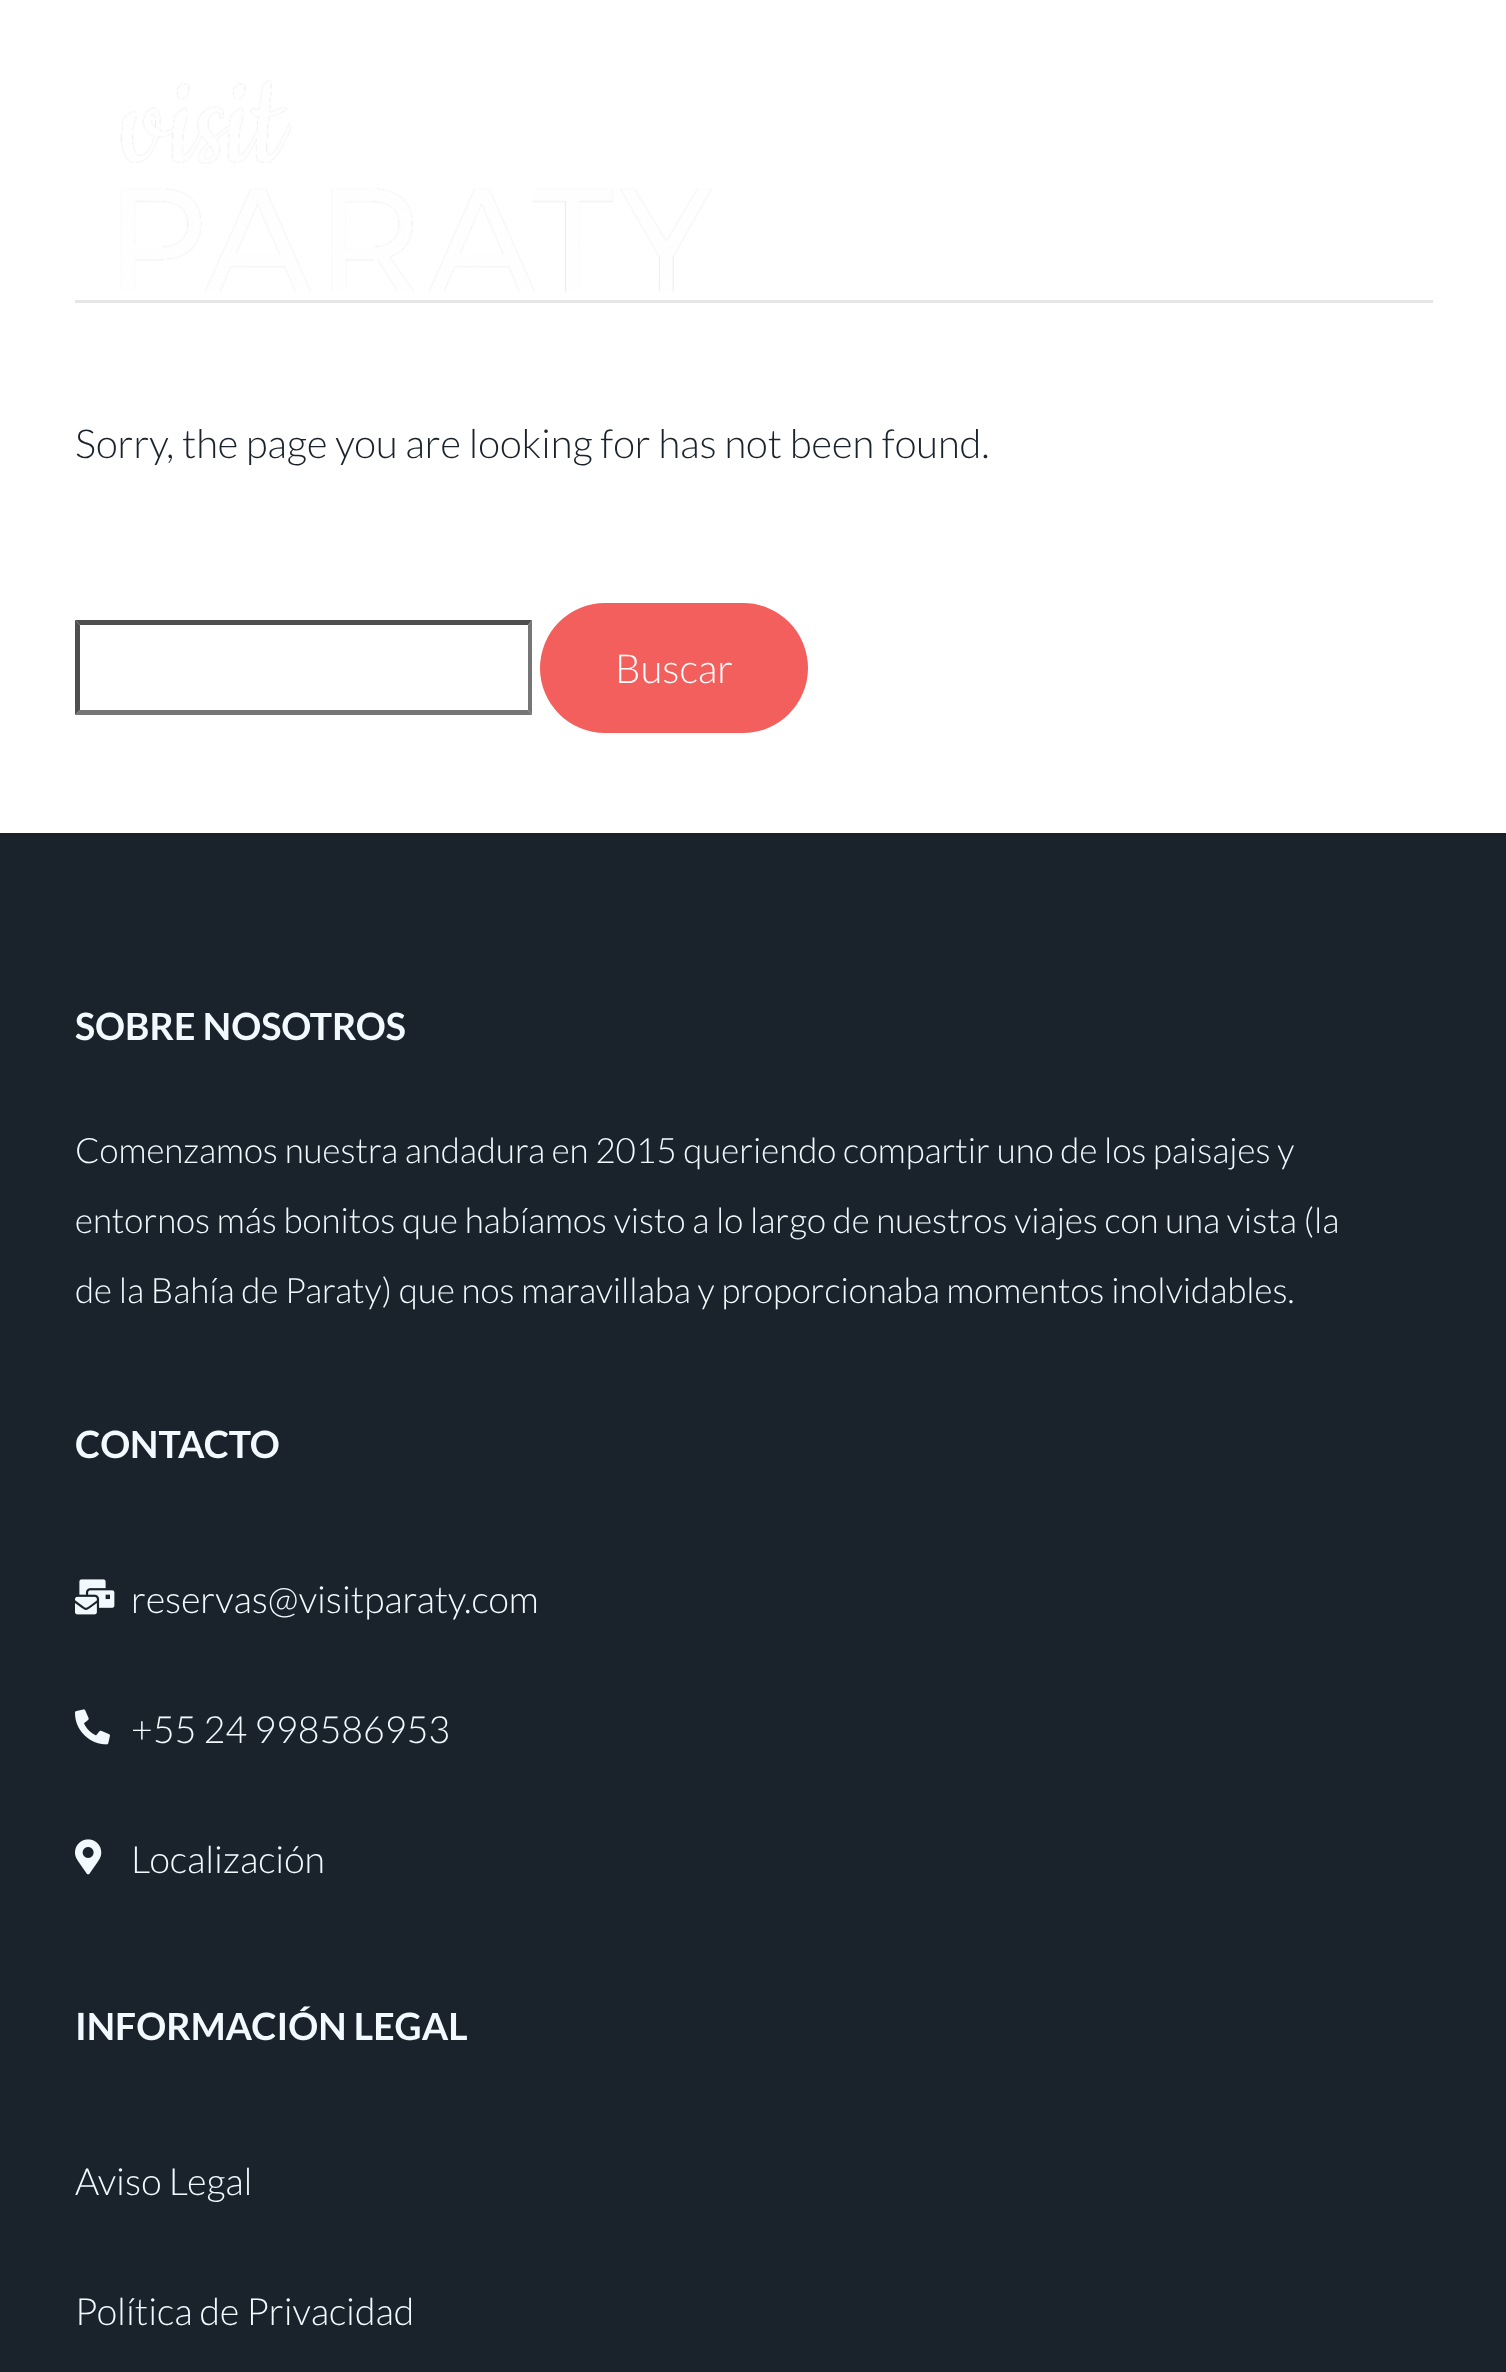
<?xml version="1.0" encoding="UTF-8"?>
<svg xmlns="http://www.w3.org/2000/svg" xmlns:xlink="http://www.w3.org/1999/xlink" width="1506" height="2372">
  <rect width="100%" height="100%" fill="#ffffff" />
  <image x="120" y="80" width="592" height="212" xlink:href="image1.png" />
  <rect x="75" y="300" width="1358" height="3" fill="#e6e6e6" />
  <path d="M 75 620 h 457 l -4 5 h -448 z" fill="#4f4f4f" />
  <path d="M 532 620 v 95 l -4 -5 v -85 z" fill="#767676" />
  <path d="M 532 715 h -457 l 5 -5 h 448 z" fill="#767676" />
  <path d="M 75 715 v -95 l 5 5 v 85 z" fill="#4f4f4f" />
  <rect x="540" y="603" width="268" height="130" rx="65" fill="#f25f5c" />
  <rect y="836" width="1506" height="1536" fill="#1a222c" />
  <rect y="833" width="1506" height="3" fill="#1a212a" />
  <image x="75" y="1579" width="40" height="36" xlink:href="image2.png" />
  <image x="75" y="1709" width="35" height="36" xlink:href="image3.png" />
  <image x="75" y="1839" width="27" height="36" xlink:href="image4.png" />
  <text x="75" y="458" style="font-family: Lato; font-size: 40px; font-weight: 300; fill: #1a222c">Sorry, the page you are looking for has not been found.</text>
  <text x="615" y="683" style="font-family: Lato; font-size: 40px; font-weight: 300; fill: #ffffff">Buscar</text>
  <text x="75" y="1040" style="font-family: Lato; font-size: 37.5px; font-weight: bold; fill: #f2faff">SOBRE NOSOTROS</text>
  <text x="75" y="1163" style="font-family: Lato; font-size: 35px; font-weight: 300; fill: #f2faff">Comenzamos nuestra andadura en 2015 queriendo compartir uno de los paisajes y</text>
  <text x="75" y="1233" style="font-family: Lato; font-size: 35px; font-weight: 300; fill: #f2faff">entornos más bonitos que habíamos visto a lo largo de nuestros viajes con una vista (la</text>
  <text x="75" y="1303" style="font-family: Lato; font-size: 35px; font-weight: 300; fill: #f2faff">de la Bahía de Paraty) que nos maravillaba y proporcionaba momentos inolvidables.</text>
  <text x="75" y="1458" style="font-family: Lato; font-size: 37.5px; font-weight: bold; fill: #f2faff">CONTACTO</text>
  <text x="131" y="1613" style="font-family: Lato; font-size: 37.5px; font-weight: 300; fill: #f2faff">reservas@visitparaty.com</text>
  <text x="131" y="1743" style="font-family: Lato; font-size: 37.5px; font-weight: 300; fill: #f2faff">+55 24 998586953</text>
  <text x="131" y="1873" style="font-family: Lato; font-size: 37.5px; font-weight: 300; fill: #f2faff">Localización</text>
  <text x="75" y="2040" style="font-family: Lato; font-size: 37.5px; font-weight: bold; fill: #f2faff">INFORMACIÓN LEGAL</text>
  <text x="75" y="2195" style="font-family: Lato; font-size: 37.5px; font-weight: 300; fill: #f2faff">Aviso Legal</text>
  <text x="75" y="2325" style="font-family: Lato; font-size: 37.5px; font-weight: 300; fill: #f2faff">Política de Privacidad</text>
</svg>
